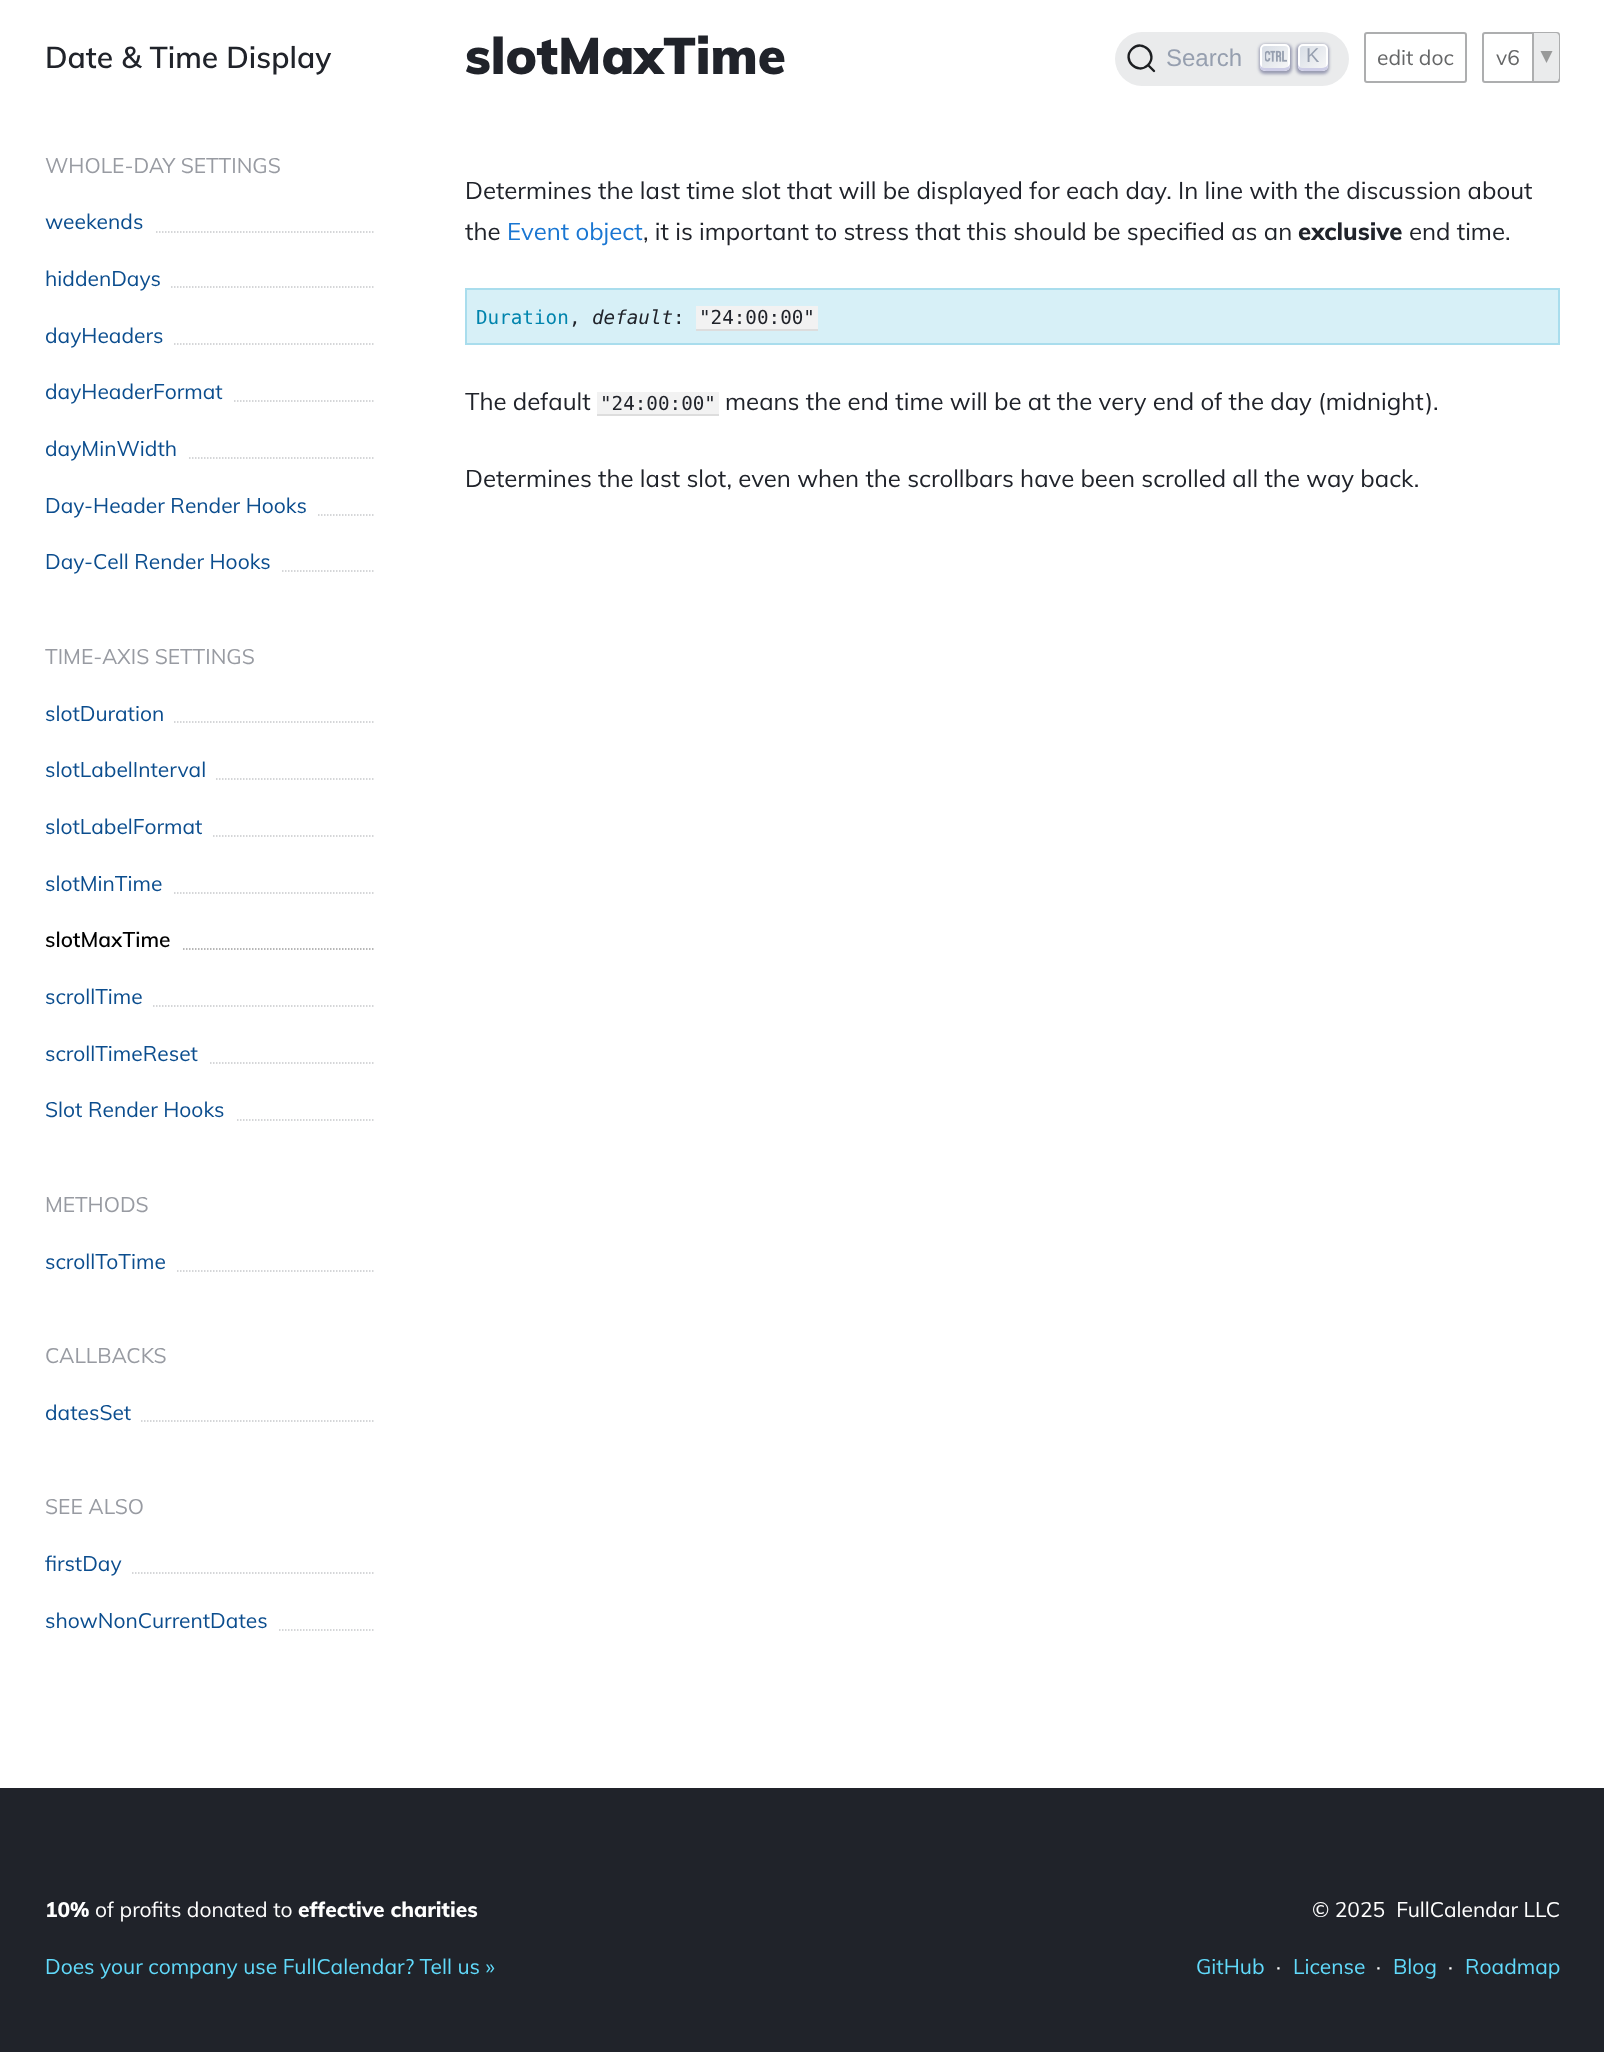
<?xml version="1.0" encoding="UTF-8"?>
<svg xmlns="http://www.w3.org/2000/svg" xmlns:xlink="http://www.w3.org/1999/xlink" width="1604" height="2052">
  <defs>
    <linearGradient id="g1" gradientUnits="userSpaceOnUse" x1="1261" y1="43" x2="1289" y2="71"><stop offset="0" stop-color="#d5dbe4" /><stop offset="1" stop-color="#f8f8f8" /></linearGradient>
    <linearGradient id="g2" gradientUnits="userSpaceOnUse" x1="1298" y1="43" x2="1327" y2="71"><stop offset="0" stop-color="#d5dbe4" /><stop offset="1" stop-color="#f8f8f8" /></linearGradient>
  </defs>
  <rect width="100%" height="100%" fill="#ffffff" />
  <path d="M 45 232 h 330" fill="none" stroke="#c8c9cc" stroke-width="1.5" stroke-dasharray="1.5 1.5" />
  <rect x="45" y="231" width="110" height="2" fill="#ffffff" />
  <path d="M 45 287 h 330" fill="none" stroke="#c8c9cc" stroke-width="1.5" stroke-dasharray="1.5 1.5" />
  <rect x="45" y="286" width="125" height="2" fill="#ffffff" />
  <path d="M 45 344 h 330" fill="none" stroke="#c8c9cc" stroke-width="1.5" stroke-dasharray="1.5 1.5" />
  <rect x="45" y="343" width="128" height="2" fill="#ffffff" />
  <path d="M 45 401 h 330" fill="none" stroke="#c8c9cc" stroke-width="1.5" stroke-dasharray="1.5 1.5" />
  <rect x="45" y="400" width="188" height="2" fill="#ffffff" />
  <path d="M 45 458 h 330" fill="none" stroke="#c8c9cc" stroke-width="1.5" stroke-dasharray="1.5 1.5" />
  <rect x="45" y="457" width="143" height="2" fill="#ffffff" />
  <path d="M 45 515 h 330" fill="none" stroke="#c8c9cc" stroke-width="1.5" stroke-dasharray="1.5 1.5" />
  <rect x="45" y="514" width="272" height="2" fill="#ffffff" />
  <path d="M 45 571 h 330" fill="none" stroke="#c8c9cc" stroke-width="1.5" stroke-dasharray="1.5 1.5" />
  <rect x="45" y="570" width="236" height="2" fill="#ffffff" />
  <path d="M 45 722 h 330" fill="none" stroke="#c8c9cc" stroke-width="1.5" stroke-dasharray="1.5 1.5" />
  <rect x="45" y="721" width="128" height="2" fill="#ffffff" />
  <path d="M 45 779 h 330" fill="none" stroke="#c8c9cc" stroke-width="1.5" stroke-dasharray="1.5 1.5" />
  <rect x="45" y="778" width="170" height="2" fill="#ffffff" />
  <path d="M 45 836 h 330" fill="none" stroke="#c8c9cc" stroke-width="1.5" stroke-dasharray="1.5 1.5" />
  <rect x="45" y="835" width="167" height="2" fill="#ffffff" />
  <path d="M 45 893 h 330" fill="none" stroke="#c8c9cc" stroke-width="1.5" stroke-dasharray="1.5 1.5" />
  <rect x="45" y="892" width="128" height="2" fill="#ffffff" />
  <path d="M 45 949 h 330" fill="none" stroke="#a0a0a0" stroke-width="1.5" stroke-dasharray="1.5 1.5" />
  <rect x="45" y="948" width="137" height="2" fill="#ffffff" />
  <path d="M 45 1006 h 330" fill="none" stroke="#c8c9cc" stroke-width="1.5" stroke-dasharray="1.5 1.5" />
  <rect x="45" y="1005" width="107" height="2" fill="#ffffff" />
  <path d="M 45 1063 h 330" fill="none" stroke="#c8c9cc" stroke-width="1.5" stroke-dasharray="1.5 1.5" />
  <rect x="45" y="1062" width="164" height="2" fill="#ffffff" />
  <path d="M 45 1120 h 330" fill="none" stroke="#c8c9cc" stroke-width="1.5" stroke-dasharray="1.5 1.5" />
  <rect x="45" y="1119" width="191" height="2" fill="#ffffff" />
  <path d="M 45 1271 h 330" fill="none" stroke="#c8c9cc" stroke-width="1.5" stroke-dasharray="1.5 1.5" />
  <rect x="45" y="1270" width="131" height="2" fill="#ffffff" />
  <path d="M 45 1421 h 330" fill="none" stroke="#c8c9cc" stroke-width="1.5" stroke-dasharray="1.5 1.5" />
  <rect x="45" y="1420" width="95" height="2" fill="#ffffff" />
  <path d="M 45 1573 h 330" fill="none" stroke="#c8c9cc" stroke-width="1.5" stroke-dasharray="1.5 1.5" />
  <rect x="45" y="1572" width="86" height="2" fill="#ffffff" />
  <path d="M 45 1630 h 330" fill="none" stroke="#c8c9cc" stroke-width="1.5" stroke-dasharray="1.5 1.5" />
  <rect x="45" y="1629" width="233" height="2" fill="#ffffff" />
  <rect x="1115" y="32" width="234" height="54" rx="27" fill="#eaebec" />
  <path d="M 1148 65 l 6 6 l -6 -6 c -10.5 10.5 -26.5 -5.5 -16 -16 c 10.5 -10.5 26.5 5.5 16 16 z" fill="none" stroke="#1c1e21" stroke-width="2.4" stroke-linecap="round" stroke-linejoin="round" />
  <rect x="1259" y="44" width="33" height="30" rx="6" fill="#1e235a" fill-opacity="0.4" filter="blur(1.5px)" />
  <rect x="1261" y="45" width="28" height="25" rx="4" fill="url(#g1)" stroke="#ffffff" stroke-width="2" />
  <path d="M 1290 63.5 c -0.5 3 -2.5 4.5 -8 4.5 h -18 c -2.5 -0.5 -3.5 -2 -4 -4 c 0 6.5 2 7 8.5 7 h 13 c 7 0 8.5 -1 8.5 -7.5 z" fill="#cdcde6" />
  <image x="1265" y="50" width="22" height="12" xlink:href="image1.png" />
  <rect x="1296" y="44" width="33" height="30" rx="6" fill="#1e235a" fill-opacity="0.4" filter="blur(1.5px)" />
  <rect x="1299" y="45" width="28" height="25" rx="4" fill="url(#g2)" stroke="#ffffff" stroke-width="2" />
  <path d="M 1328 63.5 c -0.5 3 -2.5 4.5 -8 4.5 h -18 c -2.5 -0.5 -3.5 -2 -4 -4 c 0 6.5 2 7 8.5 7 h 13 c 7 0 8.5 -1 8.5 -7.5 z" fill="#cdcde6" />
  <rect x="1365" y="33" width="101" height="49" rx="2" fill="none" stroke="#adaeaf" stroke-width="2" />
  <rect x="1483" y="33" width="76" height="49" rx="2" fill="none" stroke="#adaeaf" stroke-width="2" />
  <path d="M 1532 33 h 24 c 1.5 0 3 1.5 3 3 v 42 c 0 1.5 -1.5 3 -3 3 h -24 z" fill="#eaebec" />
  <rect x="1532" y="33" width="2" height="48" fill="#adaeaf" />
  <path d="M 1540.5 51 h 12 l -6 12 z" fill="#989999" />
  <rect x="466" y="289" width="1093" height="55" fill="#d7f0f7" stroke="#a9dded" stroke-width="2" />
  <rect x="696" y="306" width="122" height="23" fill="#f2f2f2" />
  <rect x="696" y="329" width="122" height="2" fill="#dddddd" />
  <rect x="597" y="392" width="122" height="22" fill="#f2f2f2" />
  <rect x="597" y="414" width="122" height="2" fill="#dddddd" />
  <rect y="1788" width="1604" height="264" fill="#20232a" />
  <text x="45" y="68" style="font-family: Muli; font-size: 30px; font-weight: 600; fill: #20232a">Date &amp; Time Display</text>
  <text x="45" y="173" style="font-family: Muli; font-size: 21px; fill: #989ba2">WHOLE-DAY SETTINGS</text>
  <text x="45" y="229" style="font-family: Muli; font-size: 21px; fill: #0b4d8e">weekends</text>
  <text x="45" y="286" style="font-family: Muli; font-size: 21px; fill: #0b4d8e">hiddenDays</text>
  <text x="45" y="343" style="font-family: Muli; font-size: 21px; fill: #0b4d8e">dayHeaders</text>
  <text x="45" y="399" style="font-family: Muli; font-size: 21px; fill: #0b4d8e">dayHeaderFormat</text>
  <text x="45" y="456" style="font-family: Muli; font-size: 21px; fill: #0b4d8e">dayMinWidth</text>
  <text x="45" y="513" style="font-family: Muli; font-size: 21px; fill: #0b4d8e">Day-Header Render Hooks</text>
  <text x="45" y="569" style="font-family: Muli; font-size: 21px; fill: #0b4d8e">Day-Cell Render Hooks</text>
  <text x="45" y="664" style="font-family: Muli; font-size: 21px; fill: #989ba2">TIME-AXIS SETTINGS</text>
  <text x="45" y="721" style="font-family: Muli; font-size: 21px; fill: #0b4d8e">slotDuration</text>
  <text x="45" y="777" style="font-family: Muli; font-size: 21px; fill: #0b4d8e">slotLabelInterval</text>
  <text x="45" y="834" style="font-family: Muli; font-size: 21px; fill: #0b4d8e">slotLabelFormat</text>
  <text x="45" y="891" style="font-family: Muli; font-size: 21px; fill: #0b4d8e">slotMinTime</text>
  <text x="45" y="947" style="font-family: Muli; font-size: 21px; font-weight: 600; fill: #000000">slotMaxTime</text>
  <text x="45" y="1004" style="font-family: Muli; font-size: 21px; fill: #0b4d8e">scrollTime</text>
  <text x="45" y="1061" style="font-family: Muli; font-size: 21px; fill: #0b4d8e">scrollTimeReset</text>
  <text x="45" y="1117" style="font-family: Muli; font-size: 21px; fill: #0b4d8e">Slot Render Hooks</text>
  <text x="45" y="1212" style="font-family: Muli; font-size: 21px; fill: #989ba2">METHODS</text>
  <text x="45" y="1269" style="font-family: Muli; font-size: 21px; fill: #0b4d8e">scrollToTime</text>
  <text x="45" y="1363" style="font-family: Muli; font-size: 21px; fill: #989ba2">CALLBACKS</text>
  <text x="45" y="1420" style="font-family: Muli; font-size: 21px; fill: #0b4d8e">datesSet</text>
  <text x="45" y="1514" style="font-family: Muli; font-size: 21px; fill: #989ba2">SEE ALSO</text>
  <text x="45" y="1571" style="font-family: Muli; font-size: 21px; fill: #0b4d8e">firstDay</text>
  <text x="45" y="1628" style="font-family: Muli; font-size: 21px; fill: #0b4d8e">showNonCurrentDates</text>
  <text x="465" y="74" style="font-family: Muli; font-size: 51px; font-weight: 900; fill: #20232a">slotMaxTime</text>
  <text x="1166" y="66" style="font-family: Liberation Sans; font-size: 24px; fill: #969faf">Search</text>
  <text x="1306" y="62" style="font-family: Liberation Sans; font-size: 20px; fill: #969faf">K</text>
  <text x="1377" y="65" style="font-family: Muli; font-size: 21px; fill: #656667">edit doc</text>
  <text x="1496" y="65" style="font-family: Muli; font-size: 21px; fill: #656667">v6</text>
  <text x="465" y="199" style="font-family: Muli; font-size: 24px; fill: #20232a">Determines the last time slot that will be displayed for each day. In line with the discussion about</text>
  <text x="465" y="240" style="font-family: Muli; font-size: 24px; fill: #20232a">the</text>
  <text x="507" y="240" style="font-family: Muli; font-size: 24px; fill: #1976d2">Event object</text>
  <text x="643" y="240" style="font-family: Muli; font-size: 24px; fill: #20232a">, it is important to stress that this should be specified as an</text>
  <text x="1298" y="240" style="font-family: Muli; font-size: 24px; font-weight: 800; fill: #20232a">exclusive</text>
  <text x="1409" y="240" style="font-family: Muli; font-size: 24px; fill: #20232a">end time.</text>
  <text x="476" y="324" style="font-family: DejaVu Sans Mono; font-size: 19.25px; fill: #0084ad">Duration</text>
  <text x="569" y="324" style="font-family: DejaVu Sans Mono; font-size: 19.25px; fill: #20232a">,</text>
  <text x="592" y="324" style="font-family: DejaVu Sans Mono; font-size: 19.25px; font-style: italic; fill: #20232a">default</text>
  <text x="673" y="324" style="font-family: DejaVu Sans Mono; font-size: 19.25px; fill: #20232a">:</text>
  <text x="699" y="324" style="font-family: DejaVu Sans Mono; font-size: 19.25px; fill: #20232a">"24:00:00"</text>
  <text x="465" y="410" style="font-family: Muli; font-size: 24px; fill: #20232a">The default</text>
  <text x="600" y="410" style="font-family: DejaVu Sans Mono; font-size: 19.25px; fill: #20232a">"24:00:00"</text>
  <text x="725" y="410" style="font-family: Muli; font-size: 24px; fill: #20232a">means the end time will be at the very end of the day (midnight).</text>
  <text x="465" y="487" style="font-family: Muli; font-size: 24px; fill: #20232a">Determines the last slot, even when the scrollbars have been scrolled all the way back.</text>
  <text x="45" y="1917" style="font-family: Muli; font-size: 21px; font-weight: 800; fill: #ffffff">10%</text>
  <text x="95" y="1917" style="font-family: Muli; font-size: 21px; fill: #ffffff">of profits donated to</text>
  <text x="298" y="1917" style="font-family: Muli; font-size: 21px; font-weight: 800; fill: #ffffff">effective charities</text>
  <text x="45" y="1974" style="font-family: Muli; font-size: 21px; fill: #61dafb">Does your company use FullCalendar? Tell us »</text>
  <text x="1312" y="1917" style="font-family: Muli; font-size: 21px; fill: #ffffff" xml:space="preserve">© 2025  FullCalendar LLC</text>
  <text x="1196" y="1974" style="font-family: Muli; font-size: 21px; fill: #61dafb">GitHub</text>
  <text x="1276" y="1974" style="font-family: Muli; font-size: 21px; fill: #ffffff">·</text>
  <text x="1293" y="1974" style="font-family: Muli; font-size: 21px; fill: #61dafb">License</text>
  <text x="1376" y="1974" style="font-family: Muli; font-size: 21px; fill: #ffffff">·</text>
  <text x="1393" y="1974" style="font-family: Muli; font-size: 21px; fill: #61dafb">Blog</text>
  <text x="1448" y="1974" style="font-family: Muli; font-size: 21px; fill: #ffffff">·</text>
  <text x="1465" y="1974" style="font-family: Muli; font-size: 21px; fill: #61dafb">Roadmap</text>
</svg>
